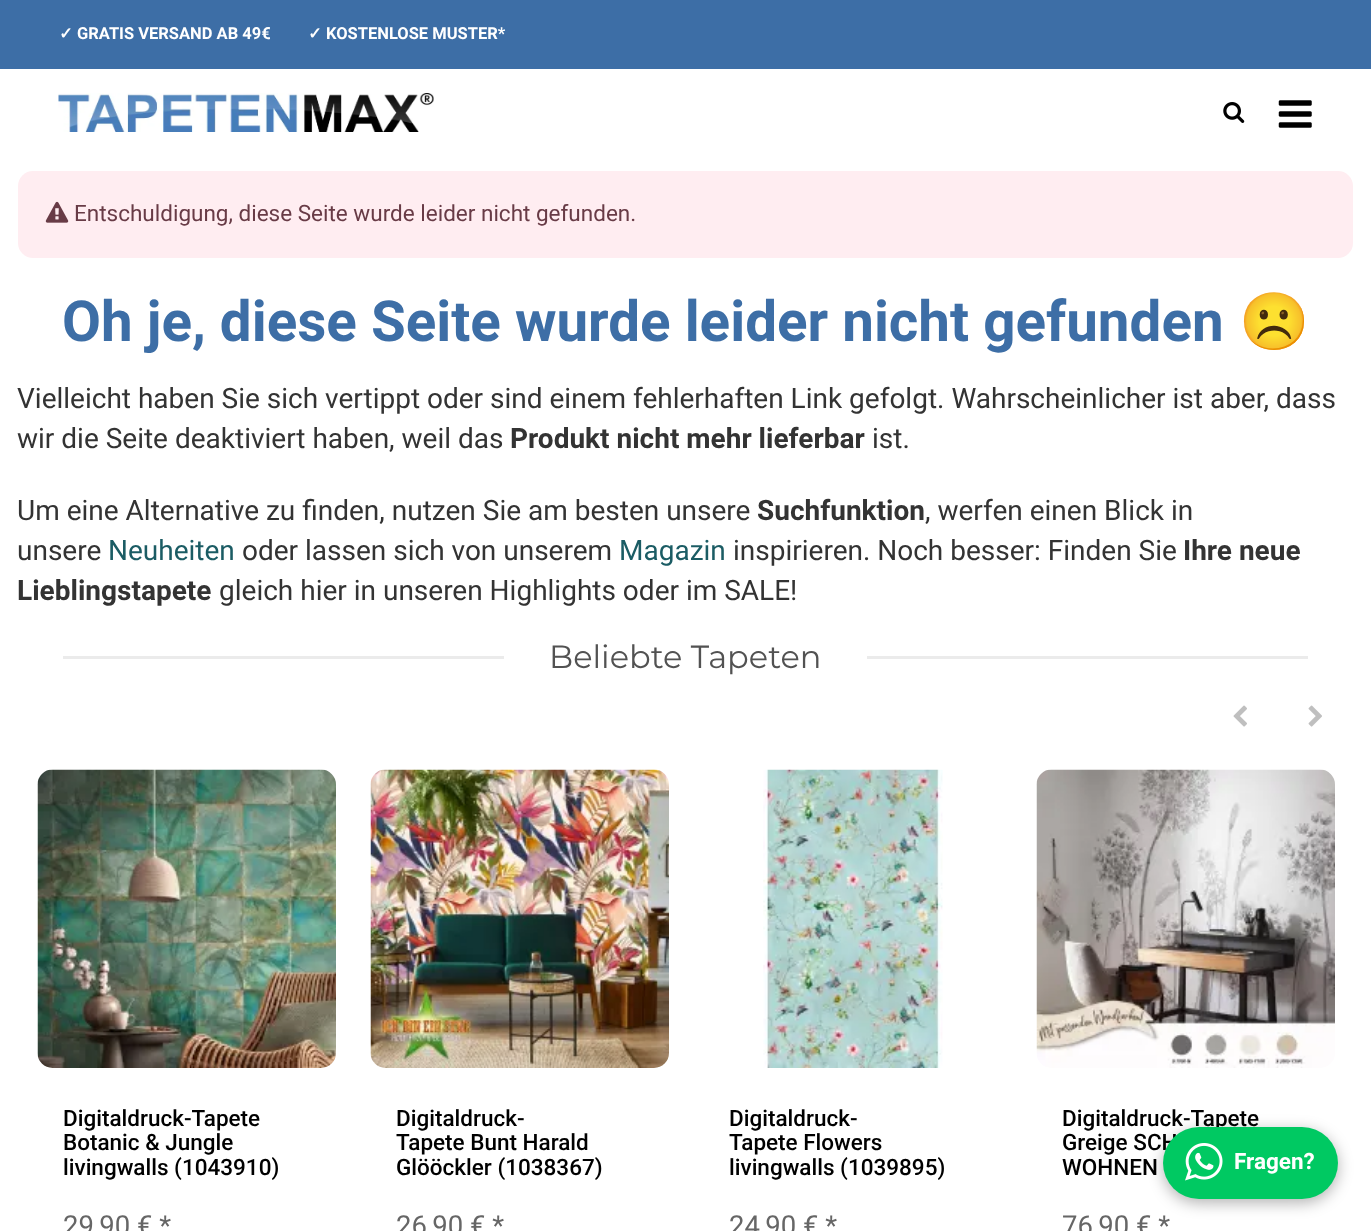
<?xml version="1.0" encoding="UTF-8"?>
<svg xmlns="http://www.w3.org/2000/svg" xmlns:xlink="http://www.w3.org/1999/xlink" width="1371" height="1231">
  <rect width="100%" height="100%" fill="#ffffff" />
  <rect width="1371" height="69" fill="#3d6ea6" />
  <image x="58" y="93" width="376" height="39" xlink:href="image1.png" />
  <image x="1223" y="102" width="22" height="21" xlink:href="image2.png" />
  <image x="1278" y="100" width="34" height="28" xlink:href="image3.png" />
  <rect x="18" y="171" width="1335" height="87" rx="15" fill="#ffedf1" />
  <image x="45" y="201" width="24" height="22" xlink:href="image4.png" />
  <rect x="63" y="656" width="441" height="3" fill="#ebebeb" />
  <rect x="867" y="656" width="441" height="3" fill="#ebebeb" />
  <image x="1233" y="705" width="14" height="22" xlink:href="image5.png" />
  <image x="1308" y="705" width="14" height="22" xlink:href="image6.png" />
  <image x="37" y="769" width="299" height="299" xlink:href="image7.png" />
  <image x="370" y="769" width="299" height="299" xlink:href="image8.png" />
  <image x="763" y="769" width="180" height="299" xlink:href="image9.png" />
  <image x="1036" y="769" width="299" height="299" xlink:href="image10.png" />
  <rect x="1163" y="1131" width="175" height="72" rx="36" fill="#000000" fill-opacity="0.3" filter="blur(7.5px)" />
  <text x="59" y="39" style="font-family: DejaVu Sans; font-size: 16.5px; font-weight: bold; fill: #ffffff">✓</text>
  <text x="77" y="39" style="font-family: Roboto; font-size: 16.5px; font-weight: bold; fill: #ffffff">GRATIS VERSAND AB 49€</text>
  <text x="308" y="39" style="font-family: DejaVu Sans; font-size: 16.5px; font-weight: bold; fill: #ffffff">✓</text>
  <text x="326" y="39" style="font-family: Roboto; font-size: 16.5px; font-weight: bold; fill: #ffffff">KOSTENLOSE MUSTER*</text>
  <text x="74" y="221" style="font-family: Roboto; font-size: 22.5px; fill: #683b46">Entschuldigung, diese Seite wurde leider nicht gefunden.</text>
  <text x="62" y="341" style="font-family: Roboto; font-size: 56.5px; font-weight: bold; fill: #3d6ea6">Oh je, diese Seite wurde leider nicht gefunden</text>
  <text x="1239" y="341" style="font-family: Noto Color Emoji; font-size: 56.5px; font-weight: bold; fill: #3d6ea6">☹️</text>
  <text x="17" y="408" style="font-family: Roboto; font-size: 28px; fill: #333333">Vielleicht haben Sie sich vertippt oder sind einem fehlerhaften Link gefolgt. Wahrscheinlicher ist aber, dass</text>
  <text x="17" y="448" style="font-family: Roboto; font-size: 28px; fill: #333333">wir die Seite deaktiviert haben, weil das</text>
  <text x="510" y="448" style="font-family: Roboto; font-size: 28px; font-weight: bold; fill: #333333">Produkt nicht mehr lieferbar</text>
  <text x="872" y="448" style="font-family: Roboto; font-size: 28px; fill: #333333">ist.</text>
  <text x="17" y="520" style="font-family: Roboto; font-size: 28px; fill: #333333">Um eine Alternative zu finden, nutzen Sie am besten unsere</text>
  <text x="757" y="520" style="font-family: Roboto; font-size: 28px; font-weight: bold; fill: #333333">Suchfunktion</text>
  <text x="925" y="520" style="font-family: Roboto; font-size: 28px; fill: #333333">, werfen einen Blick in</text>
  <text x="17" y="560" style="font-family: Roboto; font-size: 28px; fill: #333333">unsere</text>
  <text x="108" y="560" style="font-family: Roboto; font-size: 28px; fill: #1b5c64">Neuheiten</text>
  <text x="242" y="560" style="font-family: Roboto; font-size: 28px; fill: #333333">oder lassen sich von unserem</text>
  <text x="619" y="560" style="font-family: Roboto; font-size: 28px; fill: #1b5c64">Magazin</text>
  <text x="733" y="560" style="font-family: Roboto; font-size: 28px; fill: #333333">inspirieren. Noch besser: Finden Sie</text>
  <text x="1183" y="560" style="font-family: Roboto; font-size: 28px; font-weight: bold; fill: #333333">Ihre neue</text>
  <text x="17" y="600" style="font-family: Roboto; font-size: 28px; font-weight: bold; fill: #333333">Lieblingstapete</text>
  <text x="219" y="600" style="font-family: Roboto; font-size: 28px; fill: #333333">gleich hier in unseren Highlights oder im SALE!</text>
  <text x="549" y="668" style="font-family: Montserrat; font-size: 32px; fill: #525252">Beliebte Tapeten</text>
  <text x="63" y="1126" style="font-family: Roboto; font-size: 22.5px; font-weight: 500; fill: #000000">Digitaldruck-Tapete</text>
  <text x="63" y="1150" style="font-family: Roboto; font-size: 22.5px; font-weight: 500; fill: #000000">Botanic &amp; Jungle</text>
  <text x="63" y="1175" style="font-family: Roboto; font-size: 22.5px; font-weight: 500; fill: #000000">livingwalls (1043910)</text>
  <text x="63" y="1235" style="font-family: Roboto; font-size: 27.5px; fill: #666666">29,90 € *</text>
  <text x="396" y="1126" style="font-family: Roboto; font-size: 22.5px; font-weight: 500; fill: #000000">Digitaldruck-</text>
  <text x="396" y="1150" style="font-family: Roboto; font-size: 22.5px; font-weight: 500; fill: #000000">Tapete Bunt Harald</text>
  <text x="396" y="1175" style="font-family: Roboto; font-size: 22.5px; font-weight: 500; fill: #000000">Glööckler (1038367)</text>
  <text x="396" y="1235" style="font-family: Roboto; font-size: 27.5px; fill: #666666">26,90 € *</text>
  <text x="729" y="1126" style="font-family: Roboto; font-size: 22.5px; font-weight: 500; fill: #000000">Digitaldruck-</text>
  <text x="729" y="1150" style="font-family: Roboto; font-size: 22.5px; font-weight: 500; fill: #000000">Tapete Flowers</text>
  <text x="729" y="1175" style="font-family: Roboto; font-size: 22.5px; font-weight: 500; fill: #000000">livingwalls (1039895)</text>
  <text x="729" y="1235" style="font-family: Roboto; font-size: 27.5px; fill: #666666">24,90 € *</text>
  <text x="1062" y="1126" style="font-family: Roboto; font-size: 22.5px; font-weight: 500; fill: #000000">Digitaldruck-Tapete</text>
  <text x="1062" y="1150" style="font-family: Roboto; font-size: 22.5px; font-weight: 500; fill: #000000">Greige SCH</text>
  <text x="1062" y="1175" style="font-family: Roboto; font-size: 22.5px; font-weight: 500; fill: #000000">WOHNEN</text>
  <text x="1062" y="1235" style="font-family: Roboto; font-size: 27.5px; fill: #666666">76,90 € *</text>
  <rect x="1163" y="1127" width="175" height="72" rx="36" fill="#00c962" />
  <image x="1185" y="1143" width="38" height="38" xlink:href="image11.png" />
  <text x="1234" y="1169" style="font-family: Roboto; font-size: 22.5px; font-weight: bold; fill: #ffffff">Fragen?</text>
</svg>
